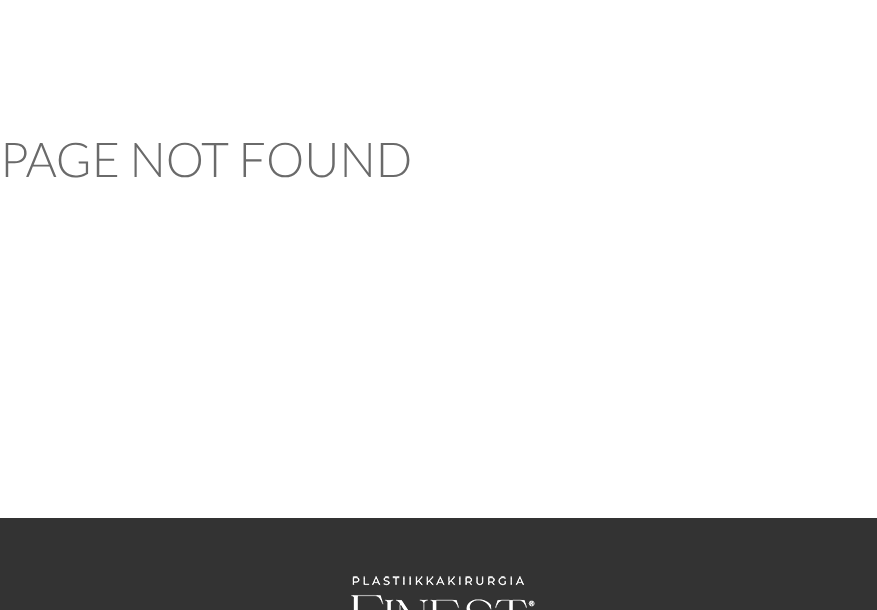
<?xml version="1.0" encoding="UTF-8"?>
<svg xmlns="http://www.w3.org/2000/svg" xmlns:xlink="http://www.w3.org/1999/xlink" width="877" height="610">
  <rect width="100%" height="100%" fill="#ffffff" />
  <rect y="518" width="877" height="92" fill="#333333" />
  <image x="351" y="576" width="184" height="34" xlink:href="image1.png" />
  <text x="0" y="177" style="font-family: Lato; font-size: 48px; font-weight: 300; fill: #6a6a6a">PAGE NOT FOUND</text>
</svg>
